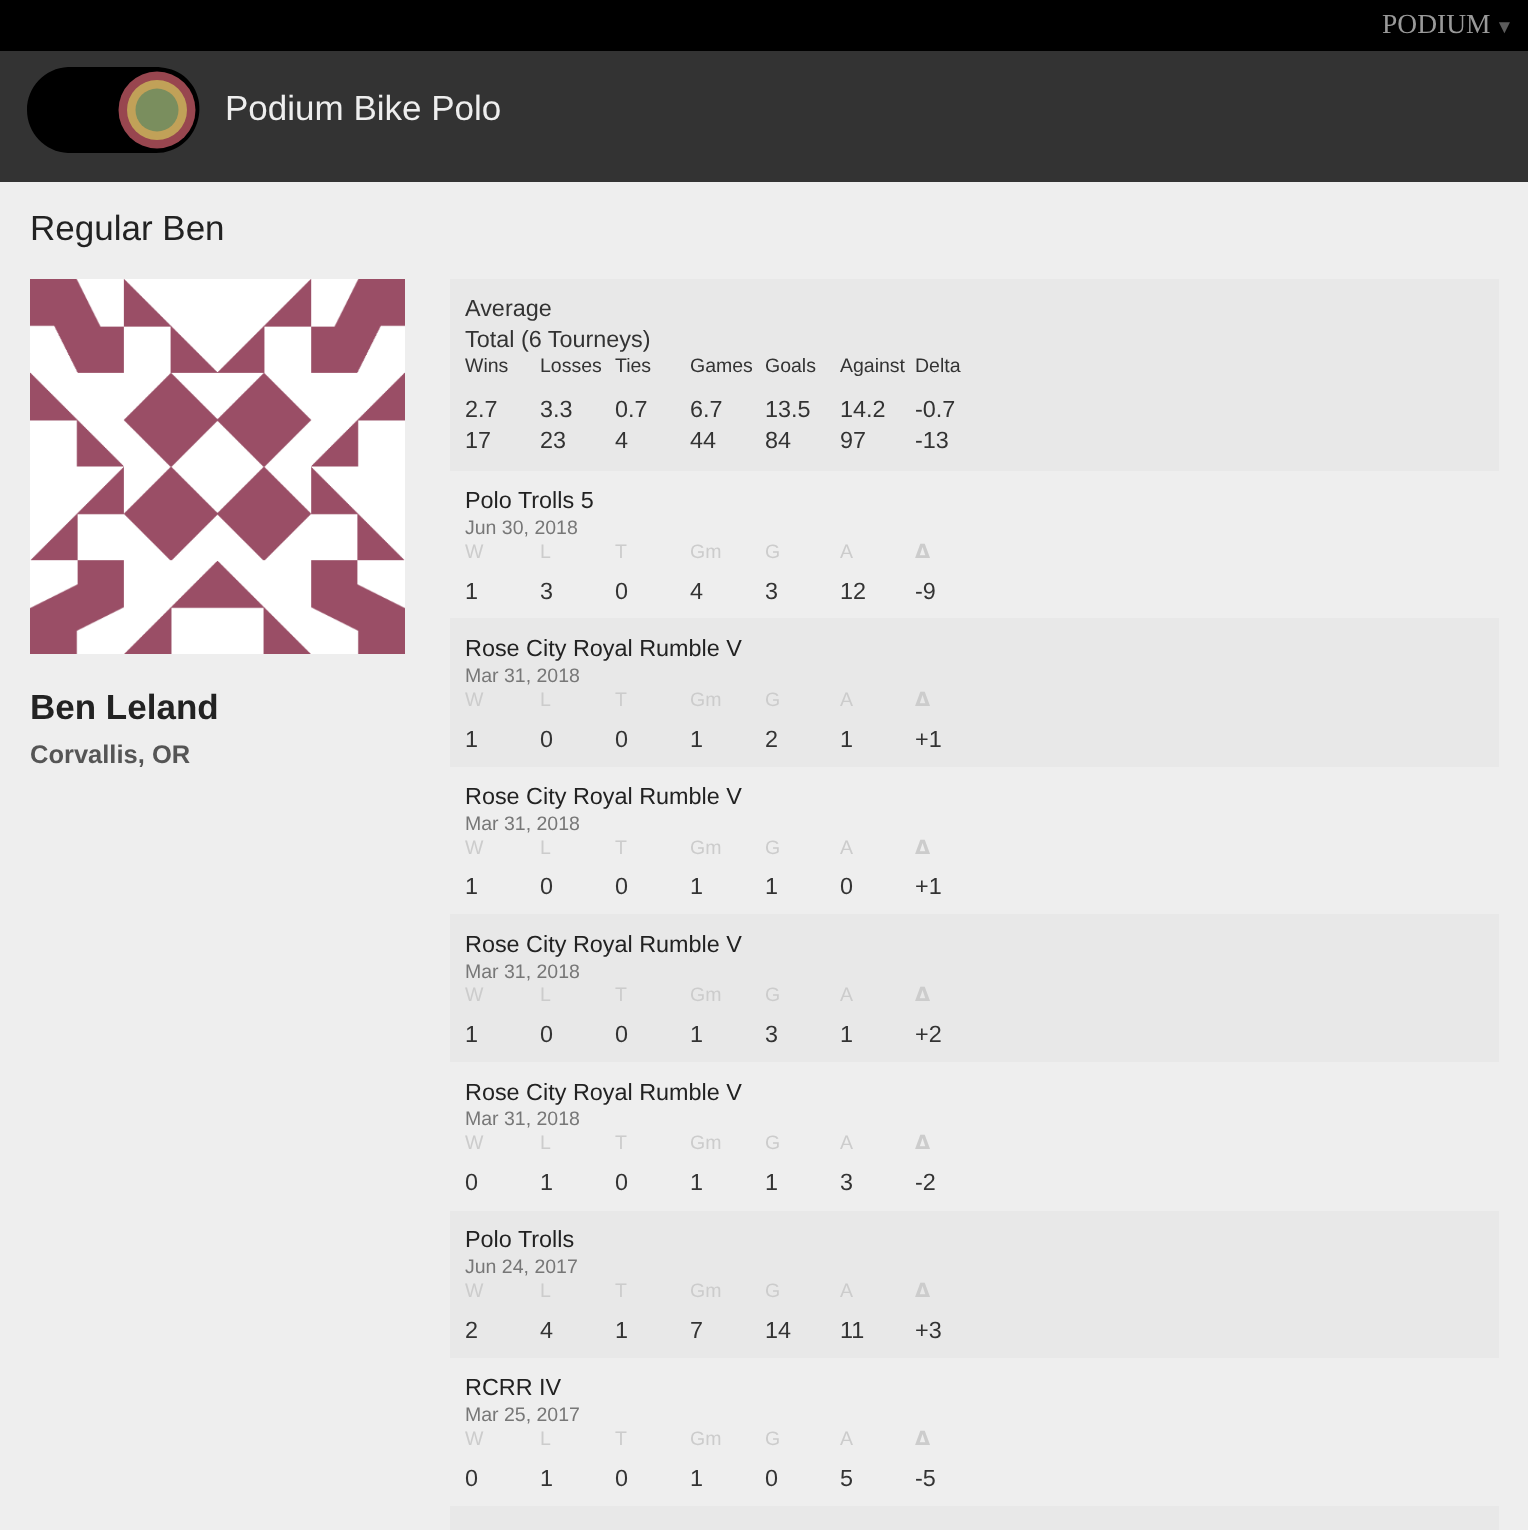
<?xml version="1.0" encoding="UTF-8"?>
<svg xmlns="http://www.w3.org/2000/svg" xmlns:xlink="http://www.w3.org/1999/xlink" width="1528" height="1530">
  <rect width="100%" height="100%" fill="#eeeeee" />
  <rect width="1528" height="51" fill="#000000" />
  <rect y="51" width="1528" height="131" fill="#333333" />
  <path d="M 27 110 c 0 -23 18 -42 41 -43 h 87 c 9 0 18 2 26 7 c 35 24 17 80 -26 79 h -87 c -23 -1 -41 -20 -41 -43 z" fill="#000000" />
  <circle cx="157" cy="110" r="38.5" fill="#98464f" />
  <circle cx="157" cy="110" r="30" fill="#c1a158" />
  <circle cx="157" cy="110" r="21.5" fill="#7a8e5e" />
  <image x="30" y="279" width="375" height="375" xlink:href="image1.png" />
  <rect x="450" y="279" width="1049" height="192" fill="#e8e8e8" />
  <rect x="450" y="618" width="1049" height="149" fill="#e8e8e8" />
  <rect x="450" y="914" width="1049" height="148" fill="#e8e8e8" />
  <rect x="450" y="1211" width="1049" height="147" fill="#e8e8e8" />
  <rect x="450" y="1506" width="1049" height="24" fill="#e8e8e8" />
  <text x="1382" y="33" style="font-family: Liberation Serif; font-size: 27.5px; fill: #999999">PODIUM</text>
  <text x="1495" y="33" style="font-family: Liberation Serif; font-size: 19px; fill: #5c5c5c">▼</text>
  <text x="225" y="120" style="font-family: Liberation Sans; font-size: 35px; fill: #eeeeee">Podium Bike Polo</text>
  <text x="30" y="240" style="font-family: Liberation Sans; font-size: 35px; fill: #222222">Regular Ben</text>
  <text x="30" y="719" style="font-family: Liberation Sans; font-size: 35px; font-weight: bold; fill: #222222">Ben Leland</text>
  <text x="30" y="763" style="font-family: Liberation Sans; font-size: 25.5px; font-weight: bold; fill: #555555">Corvallis, OR</text>
  <text x="465" y="316" style="font-family: Liberation Sans; font-size: 23.4px; fill: #333333">Average</text>
  <text x="465" y="347" style="font-family: Liberation Sans; font-size: 23.4px; fill: #333333">Total (6 Tourneys)</text>
  <text x="465" y="372" style="font-family: Liberation Sans; font-size: 19.5px; fill: #333333">Wins</text>
  <text x="540" y="372" style="font-family: Liberation Sans; font-size: 19.5px; fill: #333333">Losses</text>
  <text x="615" y="372" style="font-family: Liberation Sans; font-size: 19.5px; fill: #333333">Ties</text>
  <text x="690" y="372" style="font-family: Liberation Sans; font-size: 19.5px; fill: #333333">Games</text>
  <text x="765" y="372" style="font-family: Liberation Sans; font-size: 19.5px; fill: #333333">Goals</text>
  <text x="840" y="372" style="font-family: Liberation Sans; font-size: 19.5px; fill: #333333">Against</text>
  <text x="915" y="372" style="font-family: Liberation Sans; font-size: 19.5px; fill: #333333">Delta</text>
  <text x="465" y="417" style="font-family: Liberation Sans; font-size: 23.4px; fill: #333333">2.7</text>
  <text x="540" y="417" style="font-family: Liberation Sans; font-size: 23.4px; fill: #333333">3.3</text>
  <text x="615" y="417" style="font-family: Liberation Sans; font-size: 23.4px; fill: #333333">0.7</text>
  <text x="690" y="417" style="font-family: Liberation Sans; font-size: 23.4px; fill: #333333">6.7</text>
  <text x="765" y="417" style="font-family: Liberation Sans; font-size: 23.4px; fill: #333333">13.5</text>
  <text x="840" y="417" style="font-family: Liberation Sans; font-size: 23.4px; fill: #333333">14.2</text>
  <text x="915" y="417" style="font-family: Liberation Sans; font-size: 23.4px; fill: #333333">-0.7</text>
  <text x="465" y="448" style="font-family: Liberation Sans; font-size: 23.4px; fill: #333333">17</text>
  <text x="540" y="448" style="font-family: Liberation Sans; font-size: 23.4px; fill: #333333">23</text>
  <text x="615" y="448" style="font-family: Liberation Sans; font-size: 23.4px; fill: #333333">4</text>
  <text x="690" y="448" style="font-family: Liberation Sans; font-size: 23.4px; fill: #333333">44</text>
  <text x="765" y="448" style="font-family: Liberation Sans; font-size: 23.4px; fill: #333333">84</text>
  <text x="840" y="448" style="font-family: Liberation Sans; font-size: 23.4px; fill: #333333">97</text>
  <text x="915" y="448" style="font-family: Liberation Sans; font-size: 23.4px; fill: #333333">-13</text>
  <text x="465" y="508" style="font-family: Liberation Sans; font-size: 23.4px; fill: #222222">Polo Trolls 5</text>
  <text x="465" y="534" style="font-family: Liberation Sans; font-size: 19.5px; fill: #777777">Jun 30, 2018</text>
  <text x="465" y="558" style="font-family: Liberation Sans; font-size: 19.5px; fill: #cccccc">W</text>
  <text x="540" y="558" style="font-family: Liberation Sans; font-size: 19.5px; fill: #cccccc">L</text>
  <text x="615" y="558" style="font-family: Liberation Sans; font-size: 19.5px; fill: #cccccc">T</text>
  <text x="690" y="558" style="font-family: Liberation Sans; font-size: 19.5px; fill: #cccccc">Gm</text>
  <text x="765" y="558" style="font-family: Liberation Sans; font-size: 19.5px; fill: #cccccc">G</text>
  <text x="840" y="558" style="font-family: Liberation Sans; font-size: 19.5px; fill: #cccccc">A</text>
  <text x="915" y="558" style="font-family: DejaVu Sans; font-size: 19.5px; font-weight: bold; fill: #cccccc">𝝙</text>
  <text x="465" y="599" style="font-family: Liberation Sans; font-size: 23.4px; fill: #333333">1</text>
  <text x="540" y="599" style="font-family: Liberation Sans; font-size: 23.4px; fill: #333333">3</text>
  <text x="615" y="599" style="font-family: Liberation Sans; font-size: 23.4px; fill: #333333">0</text>
  <text x="690" y="599" style="font-family: Liberation Sans; font-size: 23.4px; fill: #333333">4</text>
  <text x="765" y="599" style="font-family: Liberation Sans; font-size: 23.4px; fill: #333333">3</text>
  <text x="840" y="599" style="font-family: Liberation Sans; font-size: 23.4px; fill: #333333">12</text>
  <text x="915" y="599" style="font-family: Liberation Sans; font-size: 23.4px; fill: #333333">-9</text>
  <text x="465" y="656" style="font-family: Liberation Sans; font-size: 23.4px; fill: #222222">Rose City Royal Rumble V</text>
  <text x="465" y="682" style="font-family: Liberation Sans; font-size: 19.5px; fill: #777777">Mar 31, 2018</text>
  <text x="465" y="706" style="font-family: Liberation Sans; font-size: 19.5px; fill: #cccccc">W</text>
  <text x="540" y="706" style="font-family: Liberation Sans; font-size: 19.5px; fill: #cccccc">L</text>
  <text x="615" y="706" style="font-family: Liberation Sans; font-size: 19.5px; fill: #cccccc">T</text>
  <text x="690" y="706" style="font-family: Liberation Sans; font-size: 19.5px; fill: #cccccc">Gm</text>
  <text x="765" y="706" style="font-family: Liberation Sans; font-size: 19.5px; fill: #cccccc">G</text>
  <text x="840" y="706" style="font-family: Liberation Sans; font-size: 19.5px; fill: #cccccc">A</text>
  <text x="915" y="706" style="font-family: DejaVu Sans; font-size: 19.5px; font-weight: bold; fill: #cccccc">𝝙</text>
  <text x="465" y="747" style="font-family: Liberation Sans; font-size: 23.4px; fill: #333333">1</text>
  <text x="540" y="747" style="font-family: Liberation Sans; font-size: 23.4px; fill: #333333">0</text>
  <text x="615" y="747" style="font-family: Liberation Sans; font-size: 23.4px; fill: #333333">0</text>
  <text x="690" y="747" style="font-family: Liberation Sans; font-size: 23.4px; fill: #333333">1</text>
  <text x="765" y="747" style="font-family: Liberation Sans; font-size: 23.4px; fill: #333333">2</text>
  <text x="840" y="747" style="font-family: Liberation Sans; font-size: 23.4px; fill: #333333">1</text>
  <text x="915" y="747" style="font-family: Liberation Sans; font-size: 23.4px; fill: #333333">+1</text>
  <text x="465" y="804" style="font-family: Liberation Sans; font-size: 23.4px; fill: #222222">Rose City Royal Rumble V</text>
  <text x="465" y="830" style="font-family: Liberation Sans; font-size: 19.5px; fill: #777777">Mar 31, 2018</text>
  <text x="465" y="854" style="font-family: Liberation Sans; font-size: 19.5px; fill: #cccccc">W</text>
  <text x="540" y="854" style="font-family: Liberation Sans; font-size: 19.5px; fill: #cccccc">L</text>
  <text x="615" y="854" style="font-family: Liberation Sans; font-size: 19.5px; fill: #cccccc">T</text>
  <text x="690" y="854" style="font-family: Liberation Sans; font-size: 19.5px; fill: #cccccc">Gm</text>
  <text x="765" y="854" style="font-family: Liberation Sans; font-size: 19.5px; fill: #cccccc">G</text>
  <text x="840" y="854" style="font-family: Liberation Sans; font-size: 19.5px; fill: #cccccc">A</text>
  <text x="915" y="854" style="font-family: DejaVu Sans; font-size: 19.5px; font-weight: bold; fill: #cccccc">𝝙</text>
  <text x="465" y="894" style="font-family: Liberation Sans; font-size: 23.4px; fill: #333333">1</text>
  <text x="540" y="894" style="font-family: Liberation Sans; font-size: 23.4px; fill: #333333">0</text>
  <text x="615" y="894" style="font-family: Liberation Sans; font-size: 23.4px; fill: #333333">0</text>
  <text x="690" y="894" style="font-family: Liberation Sans; font-size: 23.4px; fill: #333333">1</text>
  <text x="765" y="894" style="font-family: Liberation Sans; font-size: 23.4px; fill: #333333">1</text>
  <text x="840" y="894" style="font-family: Liberation Sans; font-size: 23.4px; fill: #333333">0</text>
  <text x="915" y="894" style="font-family: Liberation Sans; font-size: 23.4px; fill: #333333">+1</text>
  <text x="465" y="952" style="font-family: Liberation Sans; font-size: 23.4px; fill: #222222">Rose City Royal Rumble V</text>
  <text x="465" y="978" style="font-family: Liberation Sans; font-size: 19.5px; fill: #777777">Mar 31, 2018</text>
  <text x="465" y="1001" style="font-family: Liberation Sans; font-size: 19.5px; fill: #cccccc">W</text>
  <text x="540" y="1001" style="font-family: Liberation Sans; font-size: 19.5px; fill: #cccccc">L</text>
  <text x="615" y="1001" style="font-family: Liberation Sans; font-size: 19.5px; fill: #cccccc">T</text>
  <text x="690" y="1001" style="font-family: Liberation Sans; font-size: 19.5px; fill: #cccccc">Gm</text>
  <text x="765" y="1001" style="font-family: Liberation Sans; font-size: 19.5px; fill: #cccccc">G</text>
  <text x="840" y="1001" style="font-family: Liberation Sans; font-size: 19.5px; fill: #cccccc">A</text>
  <text x="915" y="1001" style="font-family: DejaVu Sans; font-size: 19.5px; font-weight: bold; fill: #cccccc">𝝙</text>
  <text x="465" y="1042" style="font-family: Liberation Sans; font-size: 23.4px; fill: #333333">1</text>
  <text x="540" y="1042" style="font-family: Liberation Sans; font-size: 23.4px; fill: #333333">0</text>
  <text x="615" y="1042" style="font-family: Liberation Sans; font-size: 23.4px; fill: #333333">0</text>
  <text x="690" y="1042" style="font-family: Liberation Sans; font-size: 23.4px; fill: #333333">1</text>
  <text x="765" y="1042" style="font-family: Liberation Sans; font-size: 23.4px; fill: #333333">3</text>
  <text x="840" y="1042" style="font-family: Liberation Sans; font-size: 23.4px; fill: #333333">1</text>
  <text x="915" y="1042" style="font-family: Liberation Sans; font-size: 23.4px; fill: #333333">+2</text>
  <text x="465" y="1100" style="font-family: Liberation Sans; font-size: 23.4px; fill: #222222">Rose City Royal Rumble V</text>
  <text x="465" y="1125" style="font-family: Liberation Sans; font-size: 19.5px; fill: #777777">Mar 31, 2018</text>
  <text x="465" y="1149" style="font-family: Liberation Sans; font-size: 19.5px; fill: #cccccc">W</text>
  <text x="540" y="1149" style="font-family: Liberation Sans; font-size: 19.5px; fill: #cccccc">L</text>
  <text x="615" y="1149" style="font-family: Liberation Sans; font-size: 19.5px; fill: #cccccc">T</text>
  <text x="690" y="1149" style="font-family: Liberation Sans; font-size: 19.5px; fill: #cccccc">Gm</text>
  <text x="765" y="1149" style="font-family: Liberation Sans; font-size: 19.5px; fill: #cccccc">G</text>
  <text x="840" y="1149" style="font-family: Liberation Sans; font-size: 19.5px; fill: #cccccc">A</text>
  <text x="915" y="1149" style="font-family: DejaVu Sans; font-size: 19.5px; font-weight: bold; fill: #cccccc">𝝙</text>
  <text x="465" y="1190" style="font-family: Liberation Sans; font-size: 23.4px; fill: #333333">0</text>
  <text x="540" y="1190" style="font-family: Liberation Sans; font-size: 23.4px; fill: #333333">1</text>
  <text x="615" y="1190" style="font-family: Liberation Sans; font-size: 23.4px; fill: #333333">0</text>
  <text x="690" y="1190" style="font-family: Liberation Sans; font-size: 23.4px; fill: #333333">1</text>
  <text x="765" y="1190" style="font-family: Liberation Sans; font-size: 23.4px; fill: #333333">1</text>
  <text x="840" y="1190" style="font-family: Liberation Sans; font-size: 23.4px; fill: #333333">3</text>
  <text x="915" y="1190" style="font-family: Liberation Sans; font-size: 23.4px; fill: #333333">-2</text>
  <text x="465" y="1247" style="font-family: Liberation Sans; font-size: 23.4px; fill: #222222">Polo Trolls</text>
  <text x="465" y="1273" style="font-family: Liberation Sans; font-size: 19.5px; fill: #777777">Jun 24, 2017</text>
  <text x="465" y="1297" style="font-family: Liberation Sans; font-size: 19.5px; fill: #cccccc">W</text>
  <text x="540" y="1297" style="font-family: Liberation Sans; font-size: 19.5px; fill: #cccccc">L</text>
  <text x="615" y="1297" style="font-family: Liberation Sans; font-size: 19.5px; fill: #cccccc">T</text>
  <text x="690" y="1297" style="font-family: Liberation Sans; font-size: 19.5px; fill: #cccccc">Gm</text>
  <text x="765" y="1297" style="font-family: Liberation Sans; font-size: 19.5px; fill: #cccccc">G</text>
  <text x="840" y="1297" style="font-family: Liberation Sans; font-size: 19.5px; fill: #cccccc">A</text>
  <text x="915" y="1297" style="font-family: DejaVu Sans; font-size: 19.5px; font-weight: bold; fill: #cccccc">𝝙</text>
  <text x="465" y="1338" style="font-family: Liberation Sans; font-size: 23.4px; fill: #333333">2</text>
  <text x="540" y="1338" style="font-family: Liberation Sans; font-size: 23.4px; fill: #333333">4</text>
  <text x="615" y="1338" style="font-family: Liberation Sans; font-size: 23.4px; fill: #333333">1</text>
  <text x="690" y="1338" style="font-family: Liberation Sans; font-size: 23.4px; fill: #333333">7</text>
  <text x="765" y="1338" style="font-family: Liberation Sans; font-size: 23.4px; fill: #333333">14</text>
  <text x="840" y="1338" style="font-family: Liberation Sans; font-size: 23.4px; fill: #333333">11</text>
  <text x="915" y="1338" style="font-family: Liberation Sans; font-size: 23.4px; fill: #333333">+3</text>
  <text x="465" y="1395" style="font-family: Liberation Sans; font-size: 23.4px; fill: #222222">RCRR IV</text>
  <text x="465" y="1421" style="font-family: Liberation Sans; font-size: 19.5px; fill: #777777">Mar 25, 2017</text>
  <text x="465" y="1445" style="font-family: Liberation Sans; font-size: 19.5px; fill: #cccccc">W</text>
  <text x="540" y="1445" style="font-family: Liberation Sans; font-size: 19.5px; fill: #cccccc">L</text>
  <text x="615" y="1445" style="font-family: Liberation Sans; font-size: 19.5px; fill: #cccccc">T</text>
  <text x="690" y="1445" style="font-family: Liberation Sans; font-size: 19.5px; fill: #cccccc">Gm</text>
  <text x="765" y="1445" style="font-family: Liberation Sans; font-size: 19.5px; fill: #cccccc">G</text>
  <text x="840" y="1445" style="font-family: Liberation Sans; font-size: 19.5px; fill: #cccccc">A</text>
  <text x="915" y="1445" style="font-family: DejaVu Sans; font-size: 19.5px; font-weight: bold; fill: #cccccc">𝝙</text>
  <text x="465" y="1486" style="font-family: Liberation Sans; font-size: 23.4px; fill: #333333">0</text>
  <text x="540" y="1486" style="font-family: Liberation Sans; font-size: 23.4px; fill: #333333">1</text>
  <text x="615" y="1486" style="font-family: Liberation Sans; font-size: 23.4px; fill: #333333">0</text>
  <text x="690" y="1486" style="font-family: Liberation Sans; font-size: 23.4px; fill: #333333">1</text>
  <text x="765" y="1486" style="font-family: Liberation Sans; font-size: 23.4px; fill: #333333">0</text>
  <text x="840" y="1486" style="font-family: Liberation Sans; font-size: 23.4px; fill: #333333">5</text>
  <text x="915" y="1486" style="font-family: Liberation Sans; font-size: 23.4px; fill: #333333">-5</text>
</svg>
